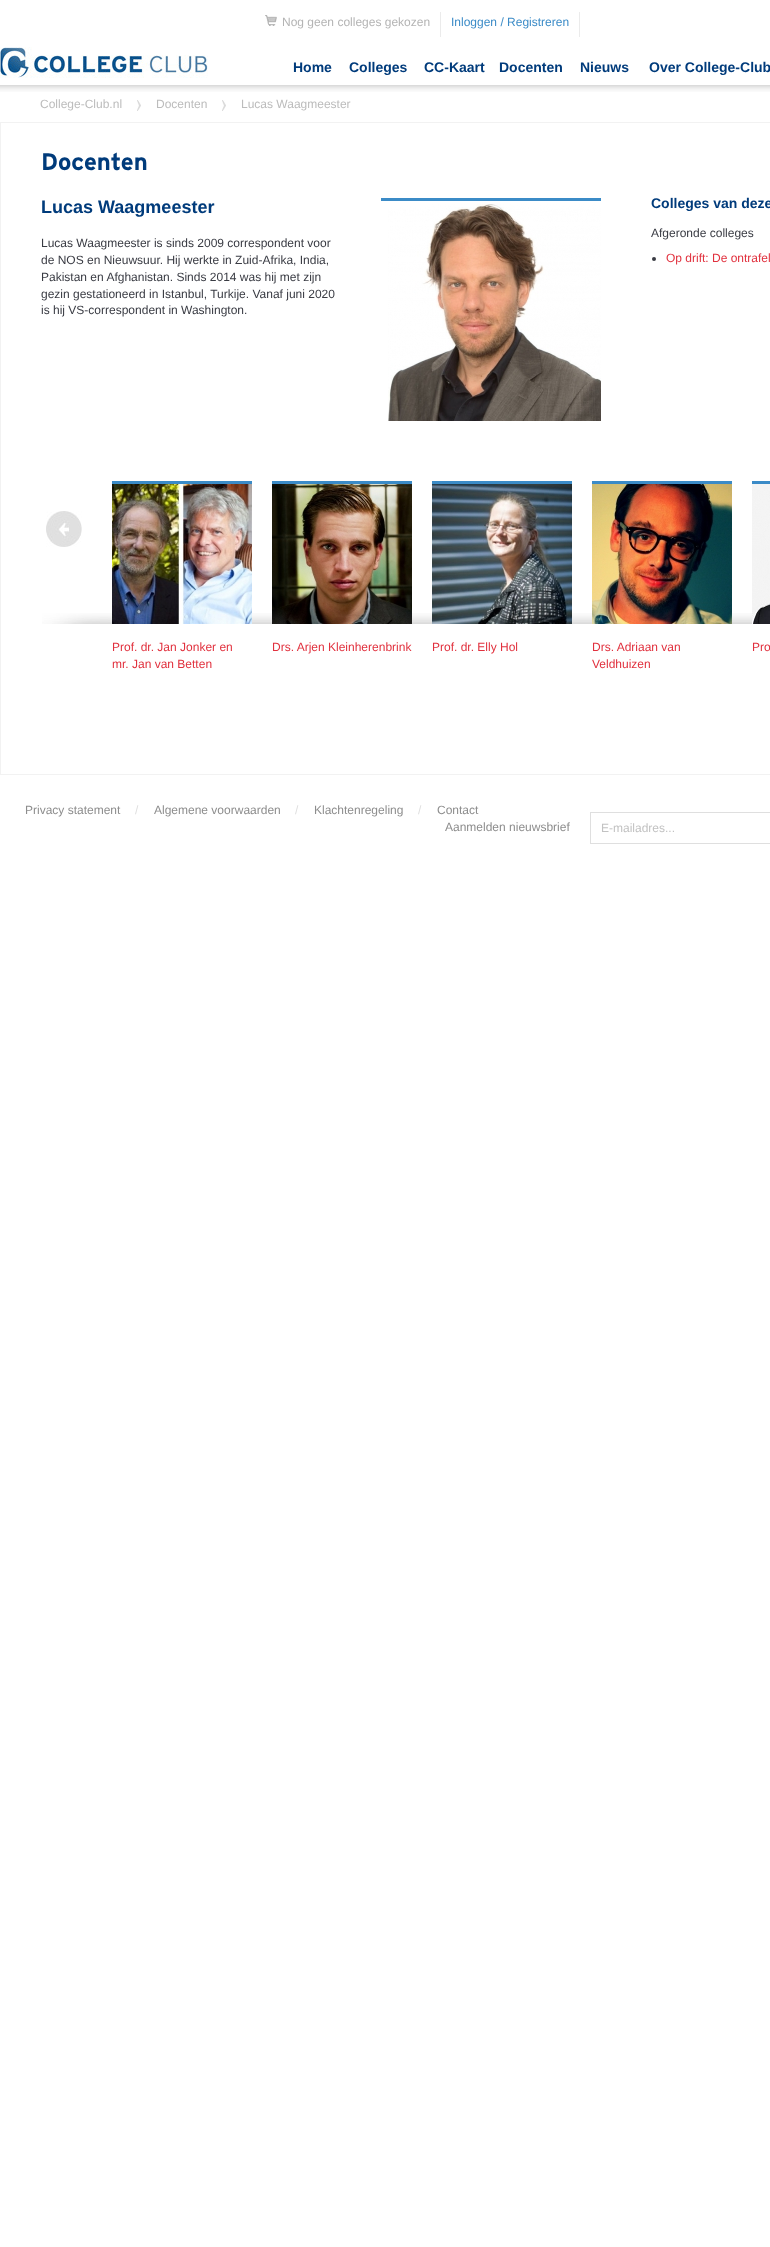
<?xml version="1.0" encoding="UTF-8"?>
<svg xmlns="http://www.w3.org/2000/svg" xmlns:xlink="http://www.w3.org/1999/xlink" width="770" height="2247">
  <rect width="100%" height="100%" fill="#ffffff" />
  <image x="0" y="85" width="770" height="7" xlink:href="image1.png" />
  <rect x="440" y="12" width="1" height="25" fill="#ebebeb" />
  <image x="265" y="15" width="12" height="11" xlink:href="image2.png" />
  <rect x="579" y="12" width="1" height="25" fill="#ebebeb" />
  <image x="0" y="47" width="208" height="31" xlink:href="image3.png" />
  <image x="137" y="100" width="4" height="11" xlink:href="image4.png" />
  <image x="222" y="100" width="4" height="11" xlink:href="image4.png" />
  <rect x="0.5" y="122.5" width="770" height="652" fill="none" stroke="#f2f2f2" />
  <rect x="381" y="198" width="220" height="3" fill="#3b8bc7" />
  <image x="388" y="204" width="213" height="217" xlink:href="image5.png" />
  <circle cx="654" cy="259" r="2" fill="#393b43" />
  <image x="42" y="613" width="710" height="11" xlink:href="image6.png" />
  <image x="46" y="511" width="36" height="36" xlink:href="image7.png" />
  <image x="112" y="484" width="140" height="140" xlink:href="image8.png" />
  <rect x="112" y="481" width="140" height="3" fill="#3b8bc7" />
  <image x="272" y="484" width="140" height="140" xlink:href="image9.png" />
  <rect x="272" y="481" width="140" height="3" fill="#3b8bc7" />
  <image x="432" y="484" width="140" height="140" xlink:href="image10.png" />
  <rect x="432" y="481" width="140" height="3" fill="#3b8bc7" />
  <image x="592" y="484" width="140" height="140" xlink:href="image11.png" />
  <rect x="592" y="481" width="140" height="3" fill="#3b8bc7" />
  <image x="752" y="484" width="18" height="140" xlink:href="image12.png" />
  <rect x="752" y="481" width="18" height="3" fill="#3b8bc7" />
  <rect x="590.5" y="812.5" width="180" height="31" fill="none" stroke="#dfdfdf" />
  <text x="282" y="26" style="font-family: Liberation Sans; font-size: 12px; fill: #b4b4b4">Nog geen colleges gekozen</text>
  <text x="451" y="26" style="font-family: Liberation Sans; font-size: 12px; fill: #3b8bc7">Inloggen / Registreren</text>
  <text x="293" y="72" style="font-family: Liberation Sans; font-size: 14px; font-weight: bold; fill: #003b7b">Home</text>
  <text x="349" y="72" style="font-family: Liberation Sans; font-size: 14px; font-weight: bold; fill: #003b7b">Colleges</text>
  <text x="424" y="72" style="font-family: Liberation Sans; font-size: 14px; font-weight: bold; fill: #003b7b">CC-Kaart</text>
  <text x="499" y="72" style="font-family: Liberation Sans; font-size: 14px; font-weight: bold; fill: #003b7b">Docenten</text>
  <text x="580" y="72" style="font-family: Liberation Sans; font-size: 14px; font-weight: bold; fill: #003b7b">Nieuws</text>
  <text x="649" y="72" style="font-family: Liberation Sans; font-size: 14px; font-weight: bold; fill: #003b7b">Over College-Club</text>
  <text x="40" y="108" style="font-family: Liberation Sans; font-size: 12px; fill: #bcbcbc">College-Club.nl</text>
  <text x="156" y="108" style="font-family: Liberation Sans; font-size: 12px; fill: #bcbcbc">Docenten</text>
  <text x="241" y="108" style="font-family: Liberation Sans; font-size: 12px; fill: #bcbcbc">Lucas Waagmeester</text>
  <text x="41" y="170" style="font-family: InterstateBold; font-size: 24px; font-weight: bold; fill: #003b7b">Docenten</text>
  <text x="41" y="213" style="font-family: Liberation Sans; font-size: 18px; font-weight: bold; fill: #003b7b">Lucas Waagmeester</text>
  <text x="41" y="247" style="font-family: Liberation Sans; font-size: 12px; fill: #393b43">Lucas Waagmeester is sinds 2009 correspondent voor</text>
  <text x="41" y="264" style="font-family: Liberation Sans; font-size: 12px; fill: #393b43">de NOS en Nieuwsuur. Hij werkte in Zuid-Afrika, India,</text>
  <text x="41" y="281" style="font-family: Liberation Sans; font-size: 12px; fill: #393b43">Pakistan en Afghanistan. Sinds 2014 was hij met zijn</text>
  <text x="41" y="298" style="font-family: Liberation Sans; font-size: 12px; fill: #393b43">gezin gestationeerd in Istanbul, Turkije. Vanaf juni 2020</text>
  <text x="41" y="314" style="font-family: Liberation Sans; font-size: 12px; fill: #393b43">is hij VS-correspondent in Washington.</text>
  <text x="651" y="208" style="font-family: Liberation Sans; font-size: 14px; font-weight: bold; fill: #003b7b">Colleges van deze</text>
  <text x="651" y="237" style="font-family: Liberation Sans; font-size: 12px; fill: #393b43">Afgeronde colleges</text>
  <text x="666" y="262" style="font-family: Liberation Sans; font-size: 12px; fill: #e1313e">Op drift: De ontrafel</text>
  <text x="112" y="651" style="font-family: Liberation Sans; font-size: 12px; fill: #e1313e">Prof. dr. Jan Jonker en</text>
  <text x="112" y="668" style="font-family: Liberation Sans; font-size: 12px; fill: #e1313e">mr. Jan van Betten</text>
  <text x="272" y="651" style="font-family: Liberation Sans; font-size: 12px; fill: #e1313e">Drs. Arjen Kleinherenbrink</text>
  <text x="432" y="651" style="font-family: Liberation Sans; font-size: 12px; fill: #e1313e">Prof. dr. Elly Hol</text>
  <text x="592" y="651" style="font-family: Liberation Sans; font-size: 12px; fill: #e1313e">Drs. Adriaan van</text>
  <text x="592" y="668" style="font-family: Liberation Sans; font-size: 12px; fill: #e1313e">Veldhuizen</text>
  <text x="752" y="651" style="font-family: Liberation Sans; font-size: 12px; fill: #e1313e">Pro</text>
  <text x="25" y="814" style="font-family: Liberation Sans; font-size: 12px; fill: #8d8d8d">Privacy statement</text>
  <text x="135" y="814" style="font-family: Liberation Sans; font-size: 12px; fill: #dfdfdf">/</text>
  <text x="154" y="814" style="font-family: Liberation Sans; font-size: 12px; fill: #8d8d8d">Algemene voorwaarden</text>
  <text x="295" y="814" style="font-family: Liberation Sans; font-size: 12px; fill: #dfdfdf">/</text>
  <text x="314" y="814" style="font-family: Liberation Sans; font-size: 12px; fill: #8d8d8d">Klachtenregeling</text>
  <text x="418" y="814" style="font-family: Liberation Sans; font-size: 12px; fill: #dfdfdf">/</text>
  <text x="437" y="814" style="font-family: Liberation Sans; font-size: 12px; fill: #8d8d8d">Contact</text>
  <text x="445" y="831" style="font-family: Liberation Sans; font-size: 12px; fill: #8d8d8d">Aanmelden nieuwsbrief</text>
  <text x="601" y="832" style="font-family: Liberation Sans; font-size: 12px; fill: #c2c2c2">E-mailadres...</text>
</svg>
